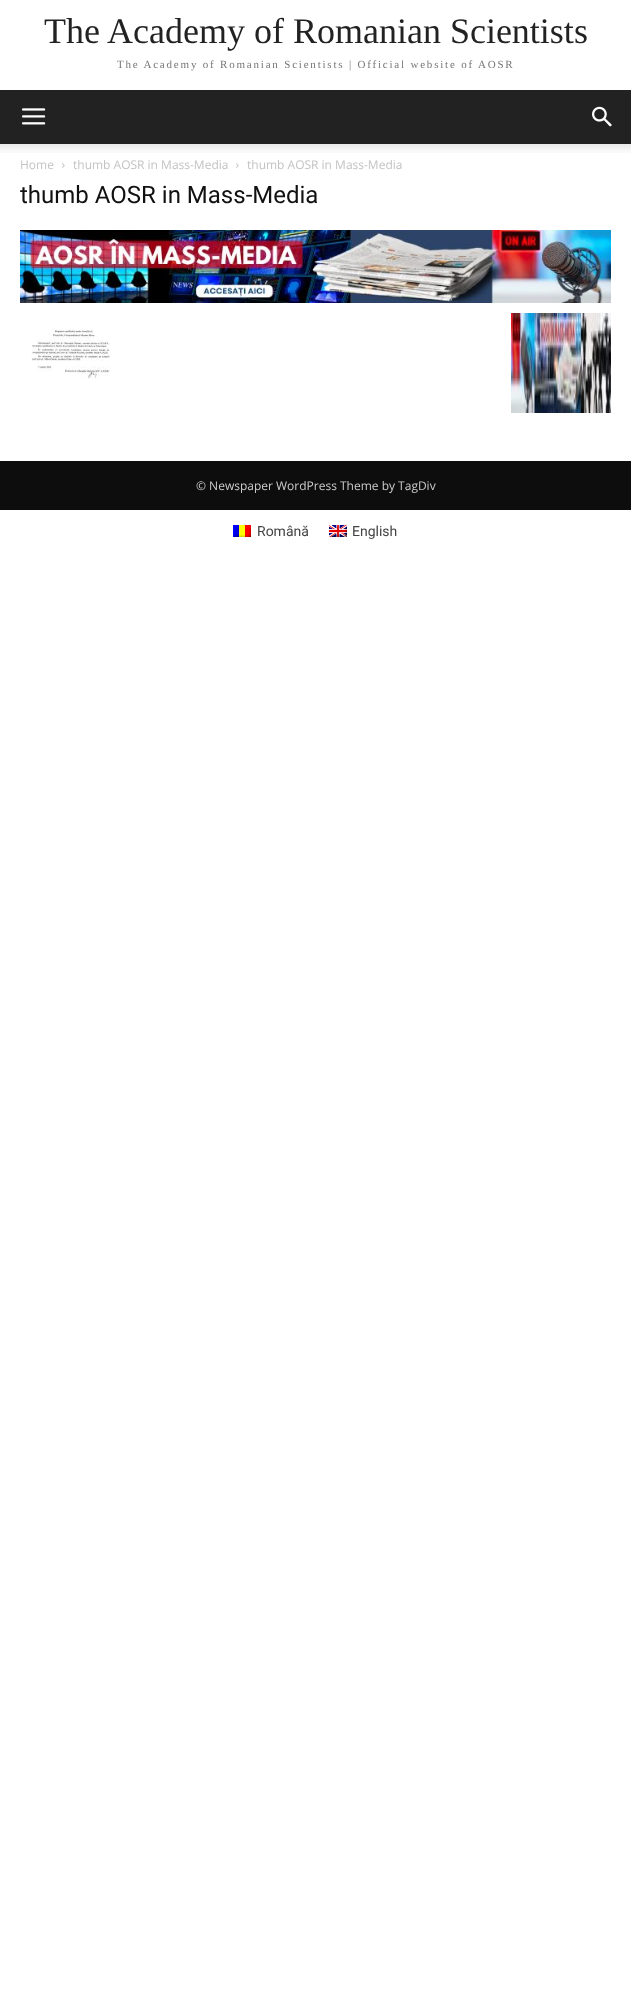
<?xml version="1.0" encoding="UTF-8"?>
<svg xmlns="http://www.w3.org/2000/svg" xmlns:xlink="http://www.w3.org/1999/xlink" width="631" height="2006">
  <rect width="100%" height="100%" fill="#ffffff" />
  <rect y="90" width="631" height="54" fill="#222222" />
  <image x="22" y="108" width="24" height="17" xlink:href="image1.png" />
  <image x="592" y="106" width="20" height="21" xlink:href="image2.png" />
  <image x="0" y="144" width="631" height="9" xlink:href="image3.png" />
  <image x="62" y="163" width="3" height="5" xlink:href="image4.png" />
  <image x="236" y="163" width="3" height="5" xlink:href="image4.png" />
  <image x="20" y="230" width="591" height="73" xlink:href="image5.png" />
  <image x="31" y="329" width="79" height="50" xlink:href="image6.png" />
  <image x="511" y="313" width="100" height="100" xlink:href="image7.png" />
  <rect y="461" width="631" height="49" fill="#0d0d0d" />
  <image x="233" y="525" width="18" height="12" xlink:href="image8.png" />
  <image x="329" y="525" width="18" height="12" xlink:href="image9.png" />
  <text x="44" y="43" style="font-family: Liberation Serif; font-size: 36px; fill: #222222">The Academy of Romanian Scientists</text>
  <text x="117" y="68" style="font-family: Liberation Serif; font-size: 11px; letter-spacing: 1.8px; fill: #777777">The Academy of Romanian Scientists | Official website of AOSR</text>
  <text x="20" y="169" style="font-family: Open Sans; font-size: 12px; fill: #c3c3c3">Home</text>
  <text x="73" y="169" style="font-family: Open Sans; font-size: 12px; fill: #c3c3c3">thumb AOSR in Mass-Media</text>
  <text x="247" y="169" style="font-family: Open Sans; font-size: 12px; fill: #c3c3c3">thumb AOSR in Mass-Media</text>
  <text x="20" y="203" style="font-family: Roboto; font-size: 24px; fill: #111111">thumb AOSR in Mass-Media</text>
  <text x="196" y="490" style="font-family: Open Sans; font-size: 12px; fill: #cccccc">© Newspaper WordPress Theme by TagDiv</text>
  <text x="257" y="536" style="font-family: Roboto; font-size: 14px; fill: #444444">Română</text>
  <text x="352" y="536" style="font-family: Roboto; font-size: 14px; fill: #444444">English</text>
</svg>
